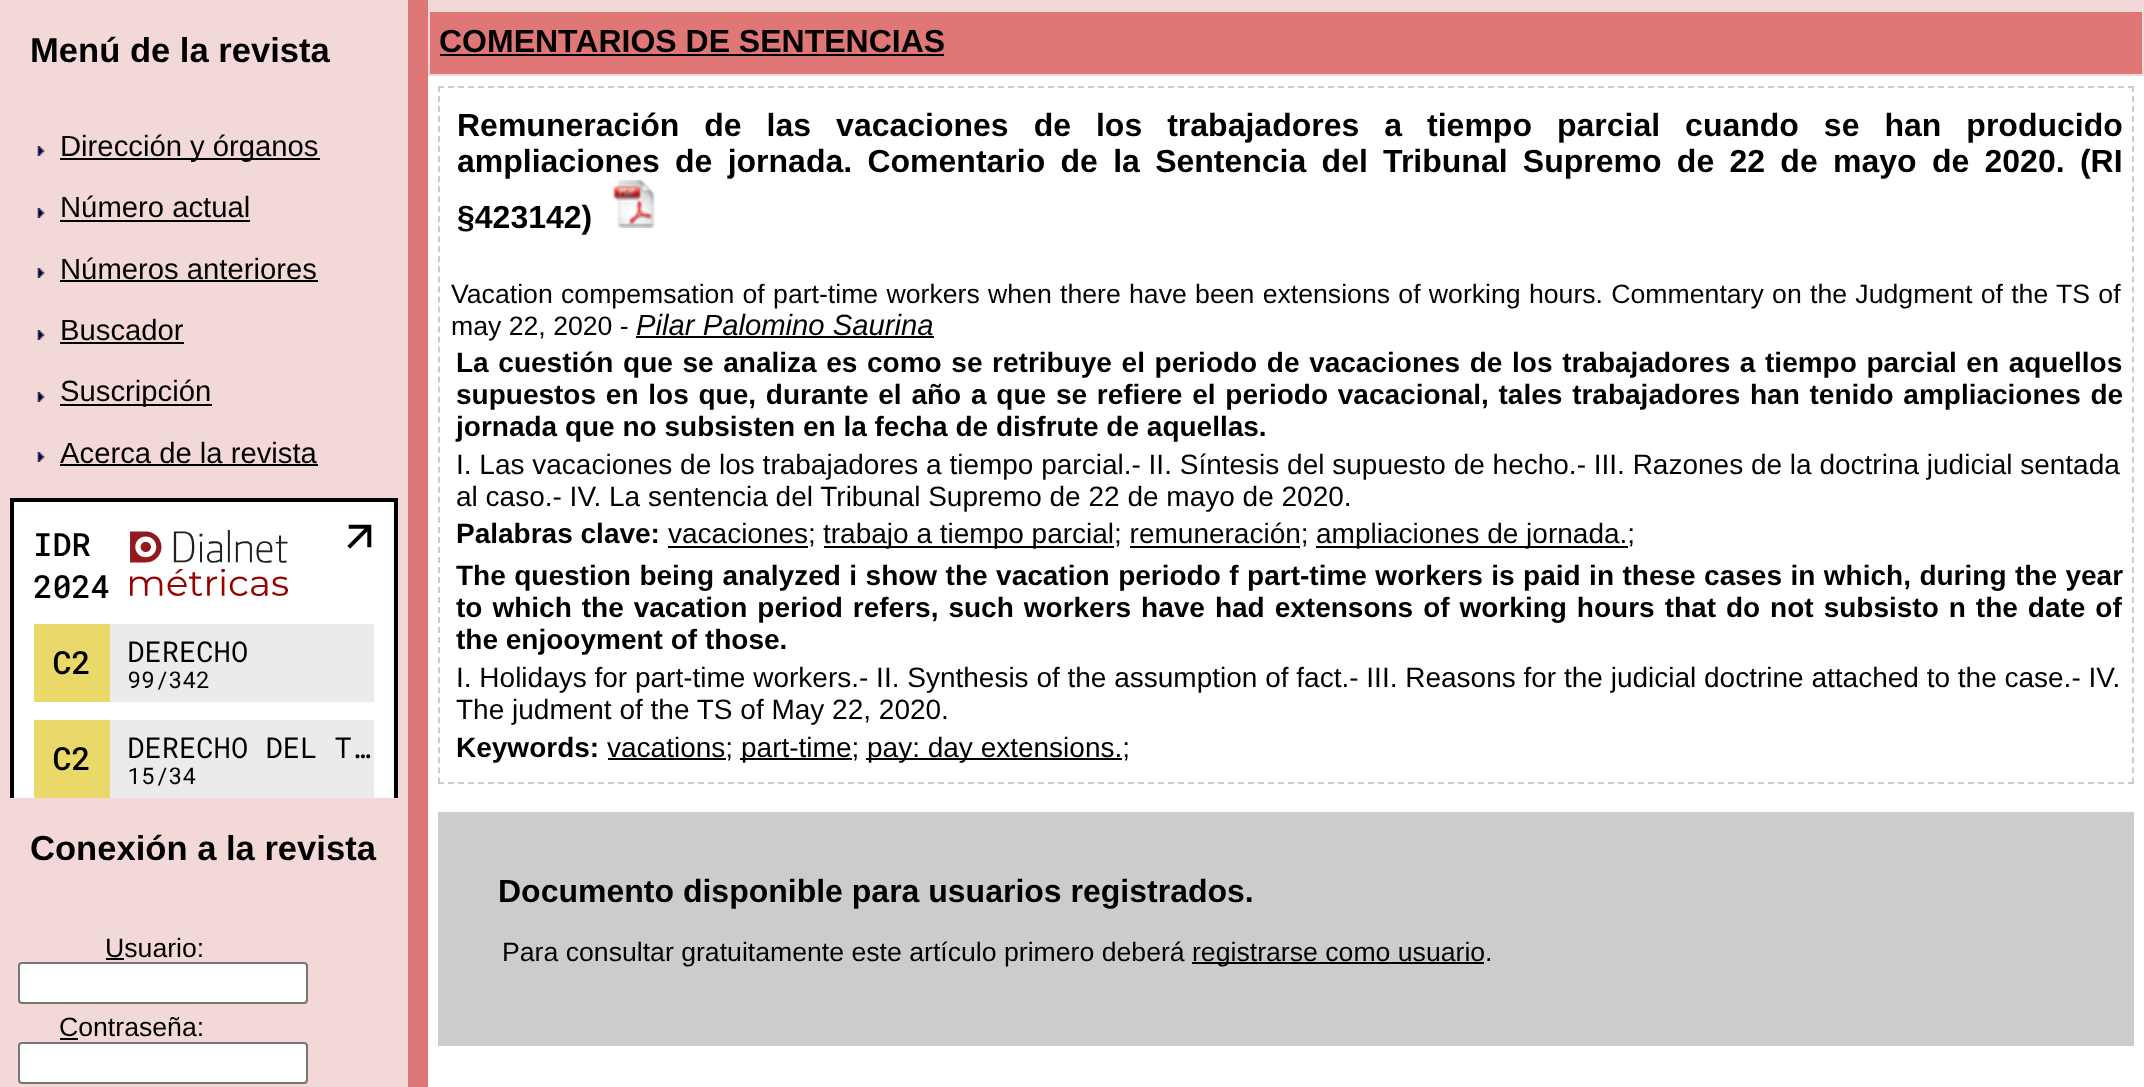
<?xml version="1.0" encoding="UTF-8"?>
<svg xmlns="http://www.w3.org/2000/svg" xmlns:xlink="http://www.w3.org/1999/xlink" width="2144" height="1087">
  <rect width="100%" height="100%" fill="#f3d8d8" />
  <image x="37" y="146" width="8" height="10" xlink:href="image1.png" />
  <rect x="60" y="158" width="260" height="2" fill="#000000" />
  <image x="37" y="208" width="8" height="10" xlink:href="image1.png" />
  <rect x="60" y="220" width="190" height="2" fill="#000000" />
  <image x="37" y="268" width="8" height="10" xlink:href="image1.png" />
  <rect x="60" y="280" width="258" height="2" fill="#000000" />
  <image x="37" y="330" width="8" height="10" xlink:href="image1.png" />
  <rect x="60" y="342" width="124" height="2" fill="#000000" />
  <image x="37" y="392" width="8" height="10" xlink:href="image1.png" />
  <rect x="60" y="404" width="152" height="2" fill="#000000" />
  <image x="37" y="452" width="8" height="10" xlink:href="image1.png" />
  <rect x="60" y="464" width="258" height="2" fill="#000000" />
  <image x="10" y="498" width="388" height="300" xlink:href="image2.png" />
  <rect x="106" y="958" width="18" height="2" fill="#000000" />
  <rect x="19" y="963" width="288" height="40" rx="3" fill="#ffffff" stroke="#767676" stroke-width="2" />
  <rect x="60" y="1038" width="18" height="2" fill="#000000" />
  <rect x="19" y="1043" width="288" height="40" rx="3" fill="#ffffff" stroke="#767676" stroke-width="2" />
  <rect x="408" width="20" height="1087" fill="#e07777" />
  <rect x="428" y="76" width="1716" height="1011" fill="#ffffff" />
  <rect x="430" y="12" width="1712" height="62" fill="#e07777" />
  <rect x="440" y="54" width="504" height="2" fill="#000000" />
  <path d="M 438 87 h 1696" fill="none" stroke="#cccccc" stroke-width="2" stroke-dasharray="6 4" />
  <path d="M 2133 86 v 698" fill="none" stroke="#cccccc" stroke-width="2" stroke-dasharray="6 4.02" />
  <path d="M 438 783 h 1696" fill="none" stroke="#cccccc" stroke-width="2" stroke-dasharray="6 4" />
  <path d="M 439 86 v 698" fill="none" stroke="#cccccc" stroke-width="2" stroke-dasharray="6 4.02" />
  <image x="613" y="180" width="42" height="48" xlink:href="image3.png" />
  <rect x="636" y="336" width="298" height="2" fill="#000000" />
  <rect x="668" y="546" width="140" height="2" fill="#000000" />
  <rect x="824" y="546" width="290" height="2" fill="#000000" />
  <rect x="1316" y="546" width="312" height="2" fill="#000000" />
  <rect x="1130" y="546" width="170" height="2" fill="#000000" />
  <rect x="608" y="758" width="118" height="2" fill="#000000" />
  <rect x="740" y="758" width="112" height="2" fill="#000000" />
  <rect x="866" y="758" width="256" height="2" fill="#000000" />
  <rect x="438" y="812" width="1696" height="234" fill="#cccccc" />
  <rect x="1192" y="962" width="292" height="2" fill="#000000" />
  <text x="30" y="62" style="font-family: Liberation Sans; font-size: 34.6px; font-weight: bold; fill: #000000">Menú de la revista</text>
  <text x="60" y="156" style="font-family: Liberation Sans; font-size: 29.25px; fill: #000000">Dirección y órganos</text>
  <text x="60" y="217" style="font-family: Liberation Sans; font-size: 29.25px; fill: #000000">Número actual</text>
  <text x="60" y="279" style="font-family: Liberation Sans; font-size: 29.25px; fill: #000000">Números anteriores</text>
  <text x="60" y="340" style="font-family: Liberation Sans; font-size: 29.25px; fill: #000000">Buscador</text>
  <text x="60" y="401" style="font-family: Liberation Sans; font-size: 29.25px; fill: #000000">Suscripción</text>
  <text x="60" y="463" style="font-family: Liberation Sans; font-size: 29.25px; fill: #000000">Acerca de la revista</text>
  <text x="30" y="860" style="font-family: Liberation Sans; font-size: 34.6px; font-weight: bold; fill: #000000">Conexión a la revista</text>
  <text x="105" y="957" style="font-family: Liberation Sans; font-size: 26.65px; fill: #000000">Usuario:</text>
  <text x="59" y="1036" style="font-family: Liberation Sans; font-size: 26.65px; fill: #000000">Contraseña:</text>
  <text x="439" y="52" style="font-family: Liberation Sans; font-size: 32px; font-weight: bold; fill: #000000">COMENTARIOS DE SENTENCIAS</text>
  <text x="457" y="136" word-spacing="16.1" style="font-family: Liberation Sans; font-size: 32px; font-weight: bold; fill: #000000">Remuneración de las vacaciones de los trabajadores a tiempo parcial cuando se han producido</text>
  <text x="457" y="172" word-spacing="6.4" style="font-family: Liberation Sans; font-size: 32px; font-weight: bold; fill: #000000">ampliaciones de jornada. Comentario de la Sentencia del Tribunal Supremo de 22 de mayo de 2020. (RI</text>
  <text x="457" y="228" style="font-family: Liberation Sans; font-size: 32px; font-weight: bold; fill: #000000">§423142)</text>
  <text x="451" y="303" word-spacing="0.9" style="font-family: Liberation Sans; font-size: 26.65px; fill: #000000">Vacation compemsation of part-time workers when there have been extensions of working hours. Commentary on the Judgment of the TS of</text>
  <text x="451" y="335" style="font-family: Liberation Sans; font-size: 26.65px; fill: #000000">may 22, 2020 -</text>
  <text x="636" y="335" style="font-family: Liberation Sans; font-size: 29.25px; font-style: italic; fill: #000000">Pilar Palomino Saurina</text>
  <text x="456" y="372" word-spacing="1.85" style="font-family: Liberation Sans; font-size: 28px; font-weight: bold; fill: #000000">La cuestión que se analiza es como se retribuye el periodo de vacaciones de los trabajadores a tiempo parcial en aquellos</text>
  <text x="456" y="404" word-spacing="2" style="font-family: Liberation Sans; font-size: 28px; font-weight: bold; fill: #000000">supuestos en los que, durante el año a que se refiere el periodo vacacional, tales trabajadores han tenido ampliaciones de</text>
  <text x="456" y="436" style="font-family: Liberation Sans; font-size: 28px; font-weight: bold; fill: #000000">jornada que no subsisten en la fecha de disfrute de aquellas.</text>
  <text x="456" y="474" style="font-family: Liberation Sans; font-size: 28px; fill: #000000">I. Las vacaciones de los trabajadores a tiempo parcial.- II. Síntesis del supuesto de hecho.- III. Razones de la doctrina judicial sentada</text>
  <text x="456" y="506" style="font-family: Liberation Sans; font-size: 28px; fill: #000000">al caso.- IV. La sentencia del Tribunal Supremo de 22 de mayo de 2020.</text>
  <text x="456" y="543" style="font-family: Liberation Sans; font-size: 28px; font-weight: bold; fill: #000000">Palabras clave:</text>
  <text x="668" y="543" style="font-family: Liberation Sans; font-size: 28px; fill: #000000">vacaciones;</text>
  <text x="823" y="543" style="font-family: Liberation Sans; font-size: 28px; fill: #000000">trabajo a tiempo parcial; remuneración;</text>
  <text x="1316" y="543" style="font-family: Liberation Sans; font-size: 28px; fill: #000000">ampliaciones de jornada.;</text>
  <text x="456" y="585" word-spacing="0.7" style="font-family: Liberation Sans; font-size: 28px; font-weight: bold; fill: #000000">The question being analyzed i show the vacation periodo f part-time workers is paid in these cases in which, during the year</text>
  <text x="456" y="617" word-spacing="2.2" style="font-family: Liberation Sans; font-size: 28px; font-weight: bold; fill: #000000">to which the vacation period refers, such workers have had extensons of working hours that do not subsisto n the date of</text>
  <text x="456" y="649" style="font-family: Liberation Sans; font-size: 28px; font-weight: bold; fill: #000000">the enjooyment of those.</text>
  <text x="456" y="687" style="font-family: Liberation Sans; font-size: 28px; fill: #000000">I. Holidays for part-time workers.- II. Synthesis of the assumption of fact.- III. Reasons for the judicial doctrine attached to the case.- IV.</text>
  <text x="456" y="719" style="font-family: Liberation Sans; font-size: 28px; fill: #000000">The judment of the TS of May 22, 2020.</text>
  <text x="456" y="757" style="font-family: Liberation Sans; font-size: 28px; font-weight: bold; fill: #000000">Keywords:</text>
  <text x="607" y="757" style="font-family: Liberation Sans; font-size: 28px; fill: #000000">vacations;</text>
  <text x="741" y="757" style="font-family: Liberation Sans; font-size: 28px; fill: #000000">part-time;</text>
  <text x="867" y="757" style="font-family: Liberation Sans; font-size: 28px; fill: #000000">pay: day extensions.;</text>
  <text x="498" y="902" style="font-family: Liberation Sans; font-size: 32px; font-weight: bold; fill: #000000">Documento disponible para usuarios registrados.</text>
  <text x="502" y="961" style="font-family: Liberation Sans; font-size: 26.65px; fill: #000000">Para consultar gratuitamente este artículo primero deberá</text>
  <text x="1192" y="961" style="font-family: Liberation Sans; font-size: 26.65px; fill: #000000">registrarse como usuario</text>
  <text x="1485" y="961" style="font-family: Liberation Sans; font-size: 26.65px; fill: #000000">.</text>
</svg>
